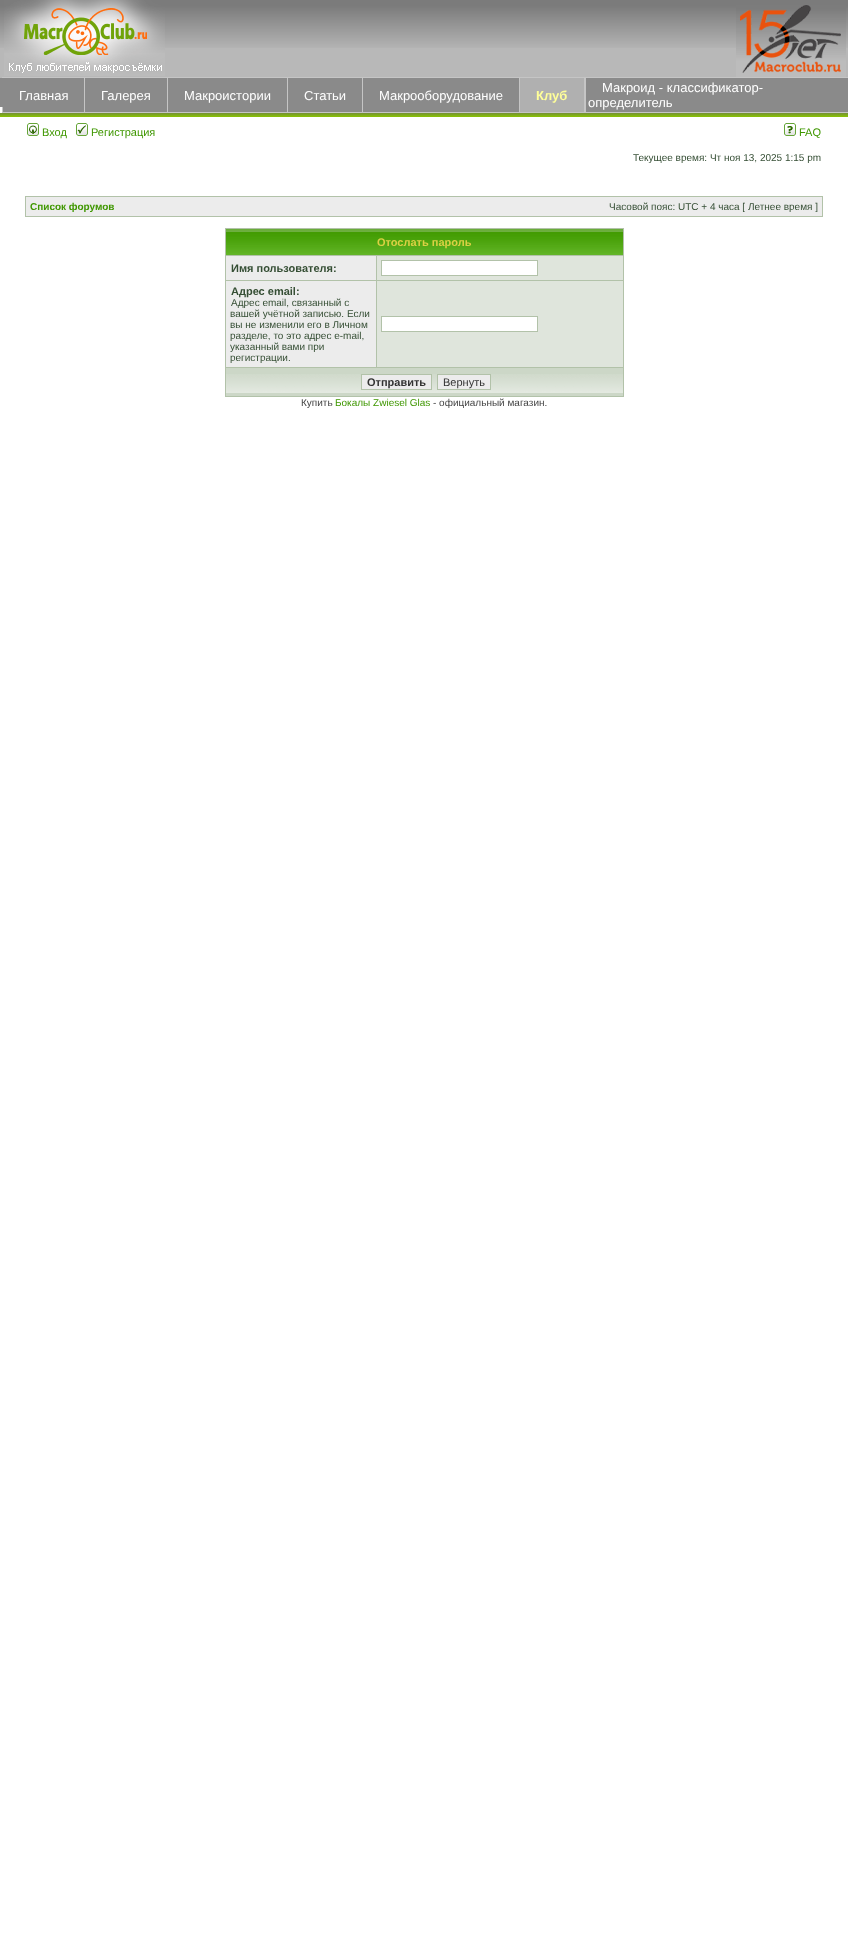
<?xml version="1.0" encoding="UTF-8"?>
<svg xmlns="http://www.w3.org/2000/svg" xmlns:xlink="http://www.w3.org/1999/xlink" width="848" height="1946">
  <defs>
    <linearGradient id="g1" gradientUnits="userSpaceOnUse" x1="424" y1="113" x2="424" y2="117"><stop offset="0" stop-color="#738e37" /><stop offset="1" stop-color="#8ac401" /></linearGradient>
  </defs>
  <rect width="100%" height="100%" fill="#ffffff" />
  <rect y="48" width="848" height="30" fill="#b8b8b8" />
  <image x="0" y="0" width="848" height="48" xlink:href="image1.png" />
  <image x="4" y="0" width="161" height="76" xlink:href="image2.png" />
  <image x="736" y="5" width="110" height="72" xlink:href="image3.png" />
  <rect x="3" y="78" width="845" height="34" fill="#8a8a8a" />
  <rect x="2" y="77" width="846" height="1" fill="#c5c5c5" />
  <rect x="2" y="112" width="846" height="1" fill="#c5c5c5" />
  <rect y="78" width="3" height="29" fill="#8a8a8a" />
  <rect x="2" y="107" width="1" height="5" fill="#c5c5c5" />
  <rect x="84" y="78" width="1" height="34" fill="#c5c5c5" />
  <rect x="167" y="78" width="1" height="34" fill="#c5c5c5" />
  <rect x="287" y="78" width="1" height="34" fill="#c5c5c5" />
  <rect x="362" y="78" width="1" height="34" fill="#c5c5c5" />
  <rect x="520" y="78" width="64" height="34" fill="#b0b0b0" />
  <rect x="584" y="78" width="2" height="34" fill="#c5c5c5" />
  <rect x="519" y="78" width="1" height="34" fill="#c5c5c5" />
  <rect y="113" width="848" height="4" fill="url(#g1)" />
  <image x="27" y="123" width="12" height="13" xlink:href="image4.png" />
  <image x="76" y="123" width="12" height="13" xlink:href="image5.png" />
  <image x="784" y="123" width="12" height="13" xlink:href="image6.png" />
  <rect x="25" y="196" width="798" height="21" fill="#b2c2a9" />
  <rect x="26" y="197" width="796" height="19" fill="#ececec" />
  <rect x="225" y="228" width="399" height="169" fill="#b2c2a9" />
  <image x="226" y="229" width="397" height="26" xlink:href="image7.png" />
  <rect x="226" y="256" width="150" height="24" fill="#ececec" />
  <rect x="377" y="256" width="246" height="24" fill="#dfe5dc" />
  <rect x="381.5" y="260.5" width="156" height="15" fill="#ffffff" stroke="#b2c2a9" />
  <rect x="226" y="281" width="150" height="86" fill="#ececec" />
  <rect x="377" y="281" width="246" height="86" fill="#dfe5dc" />
  <rect x="381.5" y="316.5" width="156" height="15" fill="#ffffff" stroke="#b2c2a9" />
  <rect x="226" y="368" width="397" height="28" fill="#ccd7c7" />
  <image x="226" y="374" width="397" height="19" xlink:href="image8.png" />
  <rect x="361.5" y="374.5" width="70" height="15" fill="#ececec" stroke="#b2c2a9" />
  <rect x="437.5" y="374.5" width="53" height="15" fill="#ececec" stroke="#b2c2a9" />
  <text x="19" y="100" style="font-family: Liberation Sans; font-size: 13px; fill: #ffffff">Главная</text>
  <text x="101" y="100" style="font-family: Liberation Sans; font-size: 13px; fill: #ffffff">Галерея</text>
  <text x="184" y="100" style="font-family: Liberation Sans; font-size: 13px; fill: #ffffff">Макроистории</text>
  <text x="304" y="100" style="font-family: Liberation Sans; font-size: 13px; fill: #ffffff">Статьи</text>
  <text x="379" y="100" style="font-family: Liberation Sans; font-size: 13px; fill: #ffffff">Макрооборудование</text>
  <text x="536" y="100" style="font-family: Liberation Sans; font-size: 13px; font-weight: bold; fill: #ffff99">Клуб</text>
  <text x="602" y="92" style="font-family: Liberation Sans; font-size: 13px; fill: #ffffff">Макроид - классификатор-</text>
  <text x="588" y="107" style="font-family: Liberation Sans; font-size: 13px; fill: #ffffff">определитель</text>
  <text x="42" y="136" style="font-family: Liberation Sans; font-size: 11px; fill: #3f9700">Вход</text>
  <text x="91" y="136" style="font-family: Liberation Sans; font-size: 11px; fill: #3f9700">Регистрация</text>
  <text x="799" y="136" style="font-family: Liberation Sans; font-size: 11px; fill: #3f9700">FAQ</text>
  <text x="633" y="161" style="font-family: Liberation Sans; font-size: 10px; fill: #354e34">Текущее время: Чт ноя 13, 2025 1:15 pm</text>
  <text x="30" y="210" style="font-family: Liberation Sans; font-size: 10px; font-weight: bold; fill: #3f9700">Список форумов</text>
  <text x="609" y="210" style="font-family: Liberation Sans; font-size: 10px; fill: #354e34">Часовой пояс: UTC + 4 часа [ Летнее время ]</text>
  <text x="377" y="246" style="font-family: Liberation Sans; font-size: 11px; font-weight: bold; fill: #dbd044">Отослать пароль</text>
  <text x="231" y="272" style="font-family: Liberation Sans; font-size: 11px; font-weight: bold; fill: #354e34">Имя пользователя:</text>
  <text x="231" y="295" style="font-family: Liberation Sans; font-size: 11px; font-weight: bold; fill: #354e34">Адрес email:</text>
  <text x="231" y="306" style="font-family: Liberation Sans; font-size: 10px; fill: #354e34">Адрес email, связанный с</text>
  <text x="230" y="317" style="font-family: Liberation Sans; font-size: 10px; fill: #354e34">вашей учётной записью. Если</text>
  <text x="230" y="328" style="font-family: Liberation Sans; font-size: 10px; fill: #354e34">вы не изменили его в Личном</text>
  <text x="230" y="339" style="font-family: Liberation Sans; font-size: 10px; fill: #354e34">разделе, то это адрес e-mail,</text>
  <text x="230" y="350" style="font-family: Liberation Sans; font-size: 10px; fill: #354e34">указанный вами при</text>
  <text x="230" y="361" style="font-family: Liberation Sans; font-size: 10px; fill: #354e34">регистрации.</text>
  <text x="367" y="386" style="font-family: Liberation Sans; font-size: 11px; font-weight: bold; fill: #333333">Отправить</text>
  <text x="443" y="386" style="font-family: Liberation Sans; font-size: 11px; fill: #333333">Вернуть</text>
  <text x="301" y="406" style="font-family: Liberation Sans; font-size: 10px; fill: #444444">Купить</text>
  <text x="335" y="406" style="font-family: Liberation Sans; font-size: 10px; fill: #3f9700">Бокалы Zwiesel Glas</text>
  <text x="433" y="406" style="font-family: Liberation Sans; font-size: 10px; fill: #444444">- официальный магазин.</text>
</svg>
